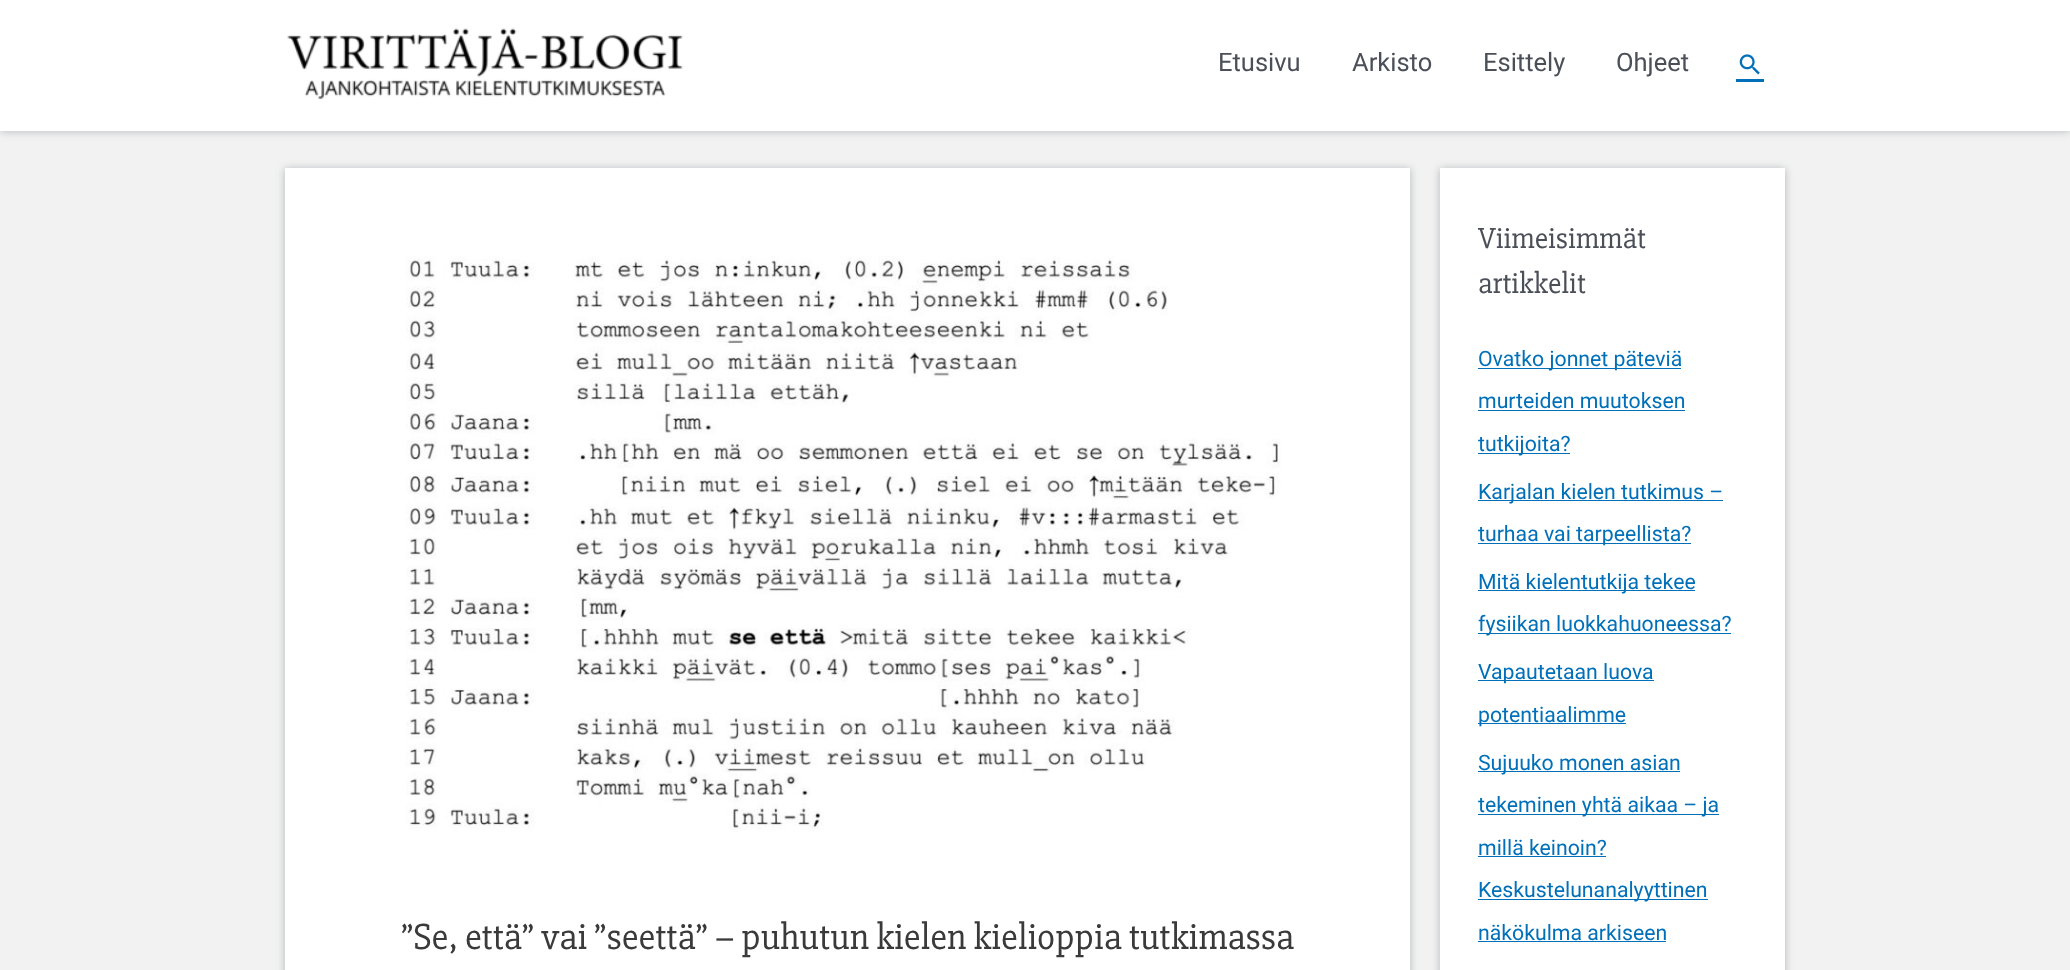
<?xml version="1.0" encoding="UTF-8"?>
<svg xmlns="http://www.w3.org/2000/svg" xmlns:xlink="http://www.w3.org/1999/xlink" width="2070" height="970">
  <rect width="100%" height="100%" fill="#f2f2f2" />
  <rect y="1" width="2070" height="130" fill="#39494c" fill-opacity="0.35" filter="blur(4px)" />
  <rect width="2070" height="131" fill="#ffffff" />
  <image x="287" y="28" width="396" height="72" xlink:href="image1.png" />
  <rect x="1736" y="79" width="28" height="3" fill="#0170b9" />
  <image x="1739" y="54" width="21" height="21" xlink:href="image2.png" />
  <rect x="285" y="169" width="1125" height="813" fill="#39494c" fill-opacity="0.35" filter="blur(4px)" />
  <rect x="285" y="168" width="1125" height="802" fill="#ffffff" />
  <image x="406" y="256" width="875" height="576" xlink:href="image3.png" />
  <rect x="1440" y="169" width="345" height="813" fill="#39494c" fill-opacity="0.35" filter="blur(4px)" />
  <rect x="1440" y="168" width="345" height="802" fill="#ffffff" />
  <rect x="1478" y="368" width="203" height="1" fill="#0170b9" />
  <rect x="1478" y="410" width="207" height="1" fill="#0170b9" />
  <rect x="1478" y="453" width="92" height="1" fill="#0170b9" />
  <rect x="1478" y="500" width="245" height="1" fill="#0170b9" />
  <rect x="1478" y="543" width="213" height="1" fill="#0170b9" />
  <rect x="1478" y="590" width="217" height="1" fill="#0170b9" />
  <rect x="1478" y="633" width="253" height="1" fill="#0170b9" />
  <rect x="1478" y="680" width="176" height="1" fill="#0170b9" />
  <rect x="1478" y="723" width="148" height="1" fill="#0170b9" />
  <rect x="1478" y="771" width="202" height="1" fill="#0170b9" />
  <rect x="1478" y="814" width="241" height="1" fill="#0170b9" />
  <rect x="1478" y="856" width="128" height="1" fill="#0170b9" />
  <rect x="1478" y="899" width="230" height="1" fill="#0170b9" />
  <rect x="1478" y="941" width="188" height="1" fill="#0170b9" />
  <text x="1218" y="71" style="font-family: Roboto; font-size: 25.5px; fill: #4b4f58">Etusivu</text>
  <text x="1352" y="71" style="font-family: Roboto; font-size: 25.5px; fill: #4b4f58">Arkisto</text>
  <text x="1483" y="71" style="font-family: Roboto; font-size: 25.5px; fill: #4b4f58">Esittely</text>
  <text x="1616" y="71" style="font-family: Roboto; font-size: 25.5px; fill: #4b4f58">Ohjeet</text>
  <text x="401" y="949" style="font-family: 'Slabo 27px'; font-size: 37.5px; fill: #3a3a3a">”Se, että” vai ”seettä” – puhutun kielen kielioppia tutkimassa</text>
  <text x="1478" y="248" style="font-family: 'Slabo 27px'; font-size: 30px; fill: #4b4f58">Viimeisimmät</text>
  <text x="1478" y="293" style="font-family: 'Slabo 27px'; font-size: 30px; fill: #4b4f58">artikkelit</text>
  <text x="1478" y="366" style="font-family: Roboto; font-size: 21.25px; fill: #0170b9">Ovatko jonnet päteviä</text>
  <text x="1478" y="408" style="font-family: Roboto; font-size: 21.25px; fill: #0170b9">murteiden muutoksen</text>
  <text x="1478" y="451" style="font-family: Roboto; font-size: 21.25px; fill: #0170b9">tutkijoita?</text>
  <text x="1478" y="499" style="font-family: Roboto; font-size: 21.25px; fill: #0170b9">Karjalan kielen tutkimus –</text>
  <text x="1478" y="541" style="font-family: Roboto; font-size: 21.25px; fill: #0170b9">turhaa vai tarpeellista?</text>
  <text x="1478" y="589" style="font-family: Roboto; font-size: 21.25px; fill: #0170b9">Mitä kielentutkija tekee</text>
  <text x="1478" y="631" style="font-family: Roboto; font-size: 21.25px; fill: #0170b9">fysiikan luokkahuoneessa?</text>
  <text x="1478" y="679" style="font-family: Roboto; font-size: 21.25px; fill: #0170b9">Vapautetaan luova</text>
  <text x="1478" y="722" style="font-family: Roboto; font-size: 21.25px; fill: #0170b9">potentiaalimme</text>
  <text x="1478" y="770" style="font-family: Roboto; font-size: 21.25px; fill: #0170b9">Sujuuko monen asian</text>
  <text x="1478" y="812" style="font-family: Roboto; font-size: 21.25px; fill: #0170b9">tekeminen yhtä aikaa – ja</text>
  <text x="1478" y="855" style="font-family: Roboto; font-size: 21.25px; fill: #0170b9">millä keinoin?</text>
  <text x="1478" y="897" style="font-family: Roboto; font-size: 21.25px; fill: #0170b9">Keskustelunanalyyttinen</text>
  <text x="1478" y="940" style="font-family: Roboto; font-size: 21.25px; fill: #0170b9">näkökulma arkiseen</text>
</svg>
